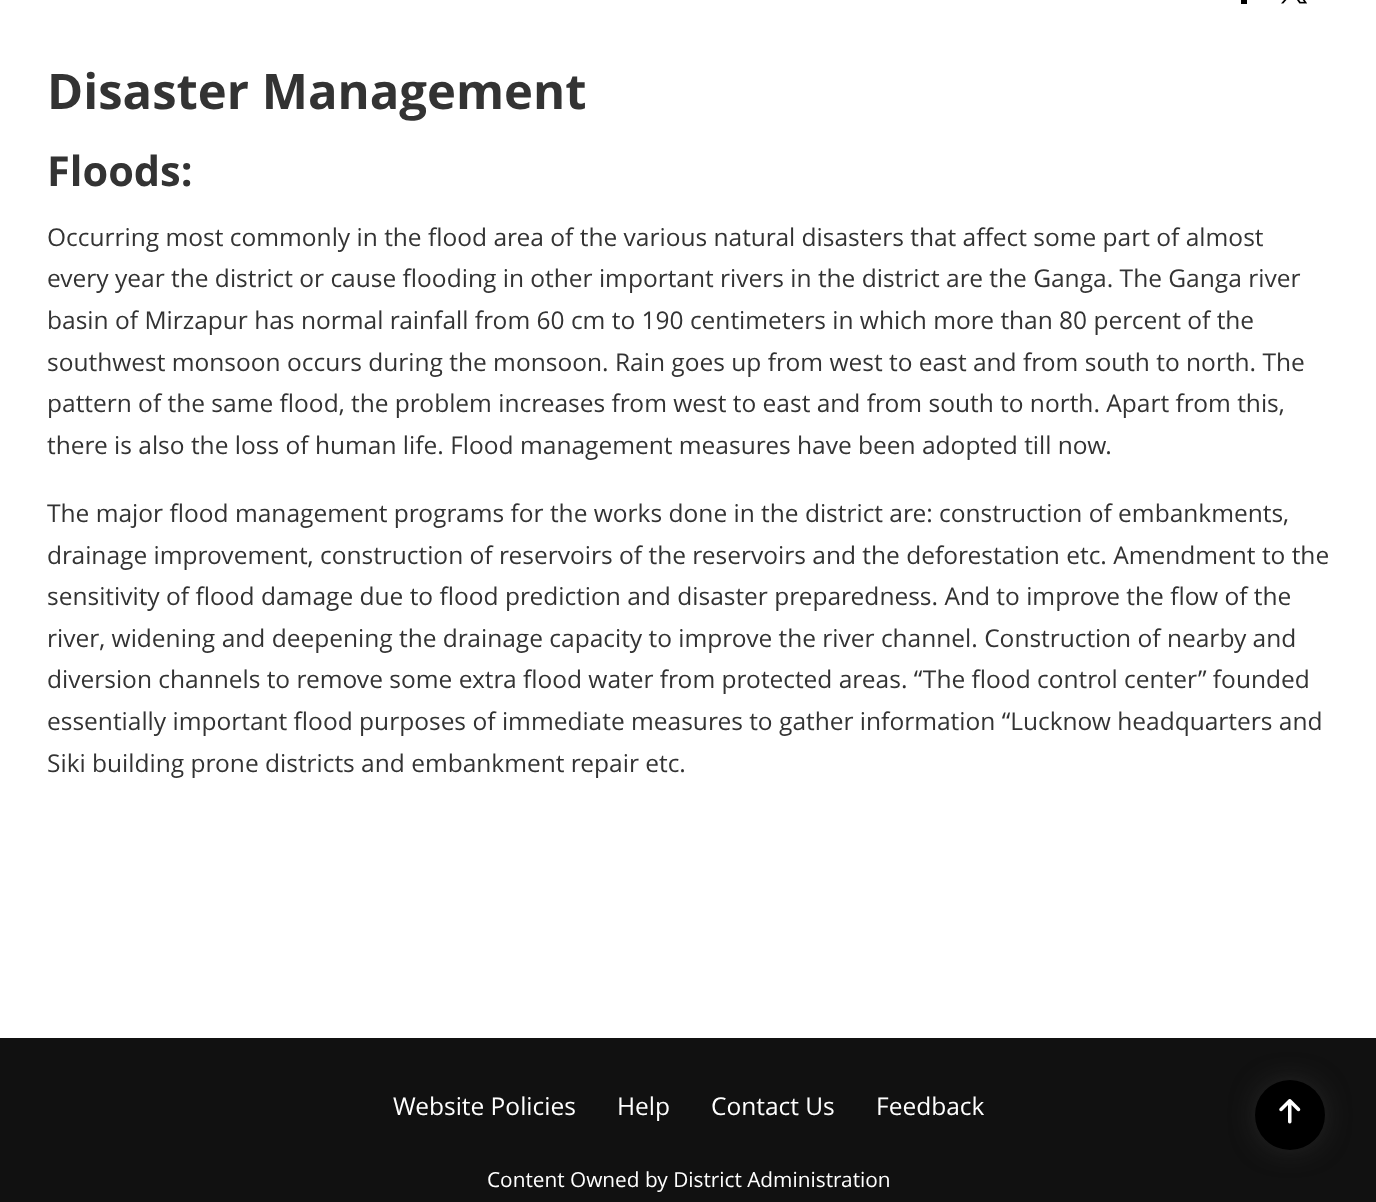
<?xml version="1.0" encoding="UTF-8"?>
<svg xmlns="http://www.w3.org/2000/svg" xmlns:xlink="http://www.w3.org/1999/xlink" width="1376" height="1202">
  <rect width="100%" height="100%" fill="#ffffff" />
  <rect x="1241" width="6" height="4" fill="#000000" />
  <image x="1281" y="0" width="26" height="4" xlink:href="image1.png" />
  <rect y="1038" width="1376" height="164" fill="#111111" />
  <rect x="1264" y="1089" width="52" height="52" rx="26" fill="#3c3c3c" filter="blur(16.5px)" />
  <circle cx="1290" cy="1115" r="35" fill="#000000" />
  <image x="1279" y="1099" width="22" height="25" xlink:href="image2.png" />
  <text x="47" y="109" style="font-family: Open Sans; font-size: 49px; font-weight: bold; fill: #333333">Disaster Management</text>
  <text x="47" y="186" style="font-family: Open Sans; font-size: 41.5px; font-weight: bold; fill: #333333">Floods:</text>
  <text x="47" y="246" style="font-family: Open Sans; font-size: 24.5px; fill: #333333">Occurring most commonly in the flood area of the various natural disasters that affect some part of almost</text>
  <text x="47" y="287" style="font-family: Open Sans; font-size: 24.5px; fill: #333333">every year the district or cause flooding in other important rivers in the district are the Ganga. The Ganga river</text>
  <text x="47" y="329" style="font-family: Open Sans; font-size: 24.5px; fill: #333333">basin of Mirzapur has normal rainfall from 60 cm to 190 centimeters in which more than 80 percent of the</text>
  <text x="47" y="371" style="font-family: Open Sans; font-size: 24.5px; fill: #333333">southwest monsoon occurs during the monsoon. Rain goes up from west to east and from south to north. The</text>
  <text x="47" y="412" style="font-family: Open Sans; font-size: 24.5px; fill: #333333">pattern of the same flood, the problem increases from west to east and from south to north. Apart from this,</text>
  <text x="47" y="454" style="font-family: Open Sans; font-size: 24.5px; fill: #333333">there is also the loss of human life. Flood management measures have been adopted till now.</text>
  <text x="47" y="522" style="font-family: Open Sans; font-size: 24.5px; fill: #333333">The major flood management programs for the works done in the district are: construction of embankments,</text>
  <text x="47" y="564" style="font-family: Open Sans; font-size: 24.5px; fill: #333333">drainage improvement, construction of reservoirs of the reservoirs and the deforestation etc. Amendment to the</text>
  <text x="47" y="605" style="font-family: Open Sans; font-size: 24.5px; fill: #333333">sensitivity of flood damage due to flood prediction and disaster preparedness. And to improve the flow of the</text>
  <text x="47" y="647" style="font-family: Open Sans; font-size: 24.5px; fill: #333333">river, widening and deepening the drainage capacity to improve the river channel. Construction of nearby and</text>
  <text x="47" y="688" style="font-family: Open Sans; font-size: 24.5px; fill: #333333">diversion channels to remove some extra flood water from protected areas. “The flood control center” founded</text>
  <text x="47" y="730" style="font-family: Open Sans; font-size: 24.5px; fill: #333333">essentially important flood purposes of immediate measures to gather information “Lucknow headquarters and</text>
  <text x="47" y="772" style="font-family: Open Sans; font-size: 24.5px; fill: #333333">Siki building prone districts and embankment repair etc.</text>
  <text x="393" y="1115" style="font-family: Open Sans; font-size: 24.5px; fill: #ffffff">Website Policies</text>
  <text x="617" y="1115" style="font-family: Open Sans; font-size: 24.5px; fill: #ffffff">Help</text>
  <text x="711" y="1115" style="font-family: Open Sans; font-size: 24.5px; fill: #ffffff">Contact Us</text>
  <text x="876" y="1115" style="font-family: Open Sans; font-size: 24.5px; fill: #ffffff">Feedback</text>
  <text x="487" y="1187" style="font-family: Open Sans; font-size: 20.8px; fill: #ffffff">Content Owned by District Administration</text>
</svg>
